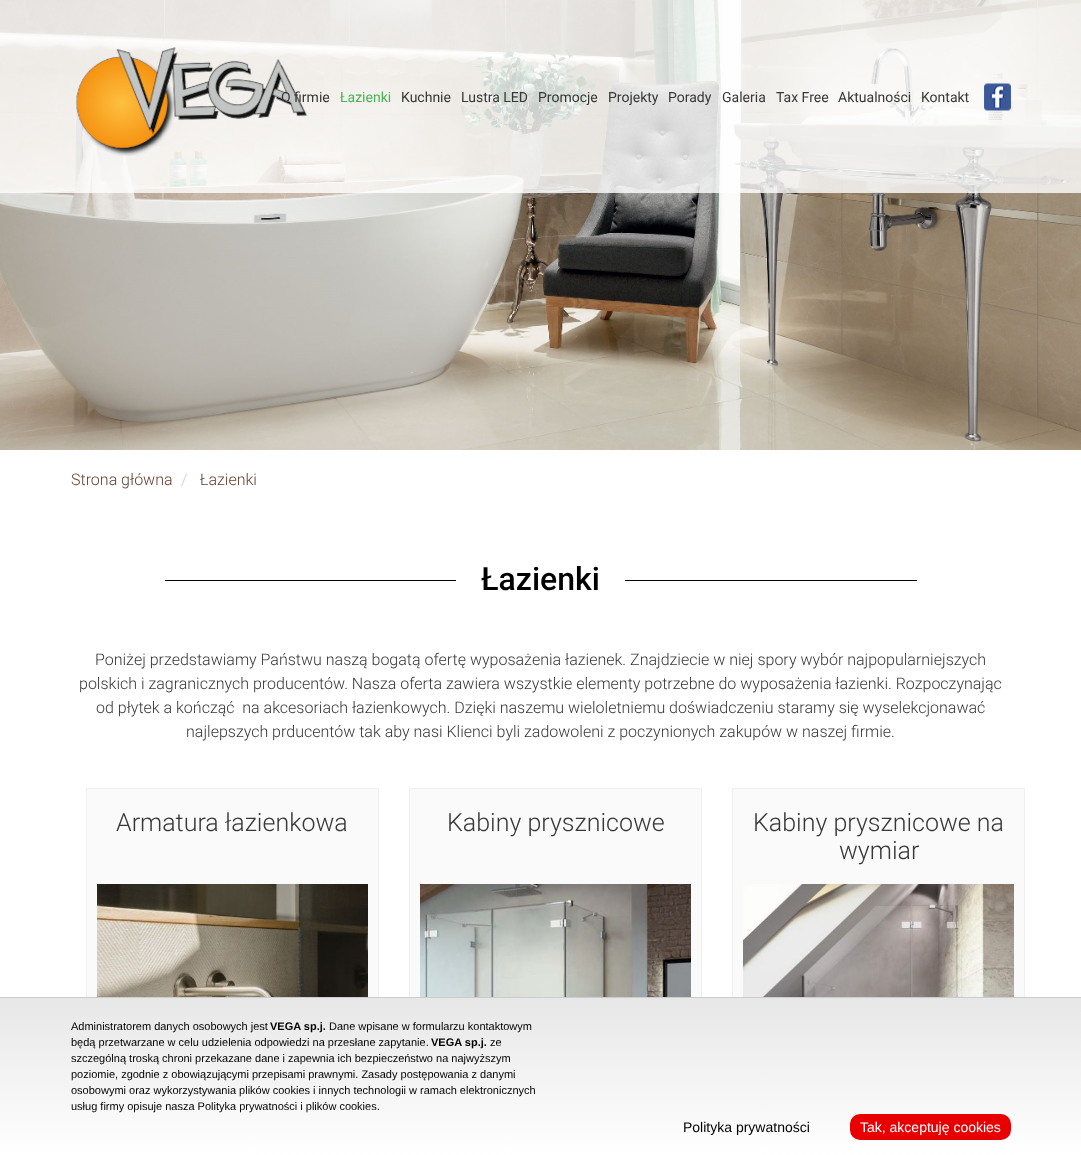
<?xml version="1.0" encoding="UTF-8"?>
<svg xmlns="http://www.w3.org/2000/svg" xmlns:xlink="http://www.w3.org/1999/xlink" width="1081" height="1155">
  <defs>
    <linearGradient id="g1" gradientUnits="userSpaceOnUse" x1="541" y1="998" x2="541" y2="1155"><stop offset="0" stop-color="#e7e7e7" /><stop offset="1" stop-color="#ffffff" /></linearGradient>
  </defs>
  <rect width="100%" height="100%" fill="#ffffff" />
  <image x="0" y="0" width="1081" height="450" xlink:href="image3.png" />
  <rect width="1081" height="193" fill="#ffffff" fill-opacity="0.8" />
  <image x="76" y="47" width="232" height="109" xlink:href="image1.png" />
  <image x="984" y="83" width="27" height="28" xlink:href="image2.png" />
  <rect x="165" y="580" width="752" height="1" fill="#000000" />
  <rect x="456" y="580" width="169" height="1" fill="#ffffff" />
  <rect x="87" y="789" width="291" height="208" fill="#fafafa" />
  <rect x="86.5" y="788.5" width="292" height="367" fill="none" stroke="#f0f0f0" />
  <image x="97" y="884" width="271" height="113" xlink:href="image4.png" />
  <rect x="410" y="789" width="291" height="208" fill="#fafafa" />
  <rect x="409.5" y="788.5" width="292" height="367" fill="none" stroke="#f0f0f0" />
  <image x="420" y="884" width="271" height="113" xlink:href="image5.png" />
  <rect x="733" y="789" width="291" height="208" fill="#fafafa" />
  <rect x="732.5" y="788.5" width="292" height="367" fill="none" stroke="#f0f0f0" />
  <image x="743" y="884" width="271" height="113" xlink:href="image6.png" />
  <rect y="998" width="1081" height="157" fill="url(#g1)" />
  <rect y="997" width="1081" height="1" fill="#cccccc" />
  <rect x="850" y="1114" width="161" height="26" rx="10" fill="#e80000" />
  <text x="281" y="102" style="font-family: Roboto; font-size: 14px; fill: #373737">O firmie</text>
  <text x="340" y="102" style="font-family: Roboto; font-size: 14px; fill: #46b655">Łazienki</text>
  <text x="401" y="102" style="font-family: Roboto; font-size: 14px; fill: #373737">Kuchnie</text>
  <text x="461" y="102" style="font-family: Roboto; font-size: 14px; fill: #373737">Lustra LED</text>
  <text x="538" y="102" style="font-family: Roboto; font-size: 14px; fill: #373737">Promocje</text>
  <text x="608" y="102" style="font-family: Roboto; font-size: 14px; fill: #373737">Projekty</text>
  <text x="668" y="102" style="font-family: Roboto; font-size: 14px; fill: #373737">Porady</text>
  <text x="722" y="102" style="font-family: Roboto; font-size: 14px; fill: #373737">Galeria</text>
  <text x="776" y="102" style="font-family: Roboto; font-size: 14px; fill: #373737">Tax Free</text>
  <text x="838" y="102" style="font-family: Roboto; font-size: 14px; fill: #373737">Aktualności</text>
  <text x="921" y="102" style="font-family: Roboto; font-size: 14px; fill: #373737">Kontakt</text>
  <text x="71" y="485" style="font-family: Roboto; font-size: 16px; font-weight: 300; fill: #644131">Strona główna</text>
  <text x="181" y="485" style="font-family: Roboto; font-size: 16px; font-weight: 300; fill: #cccccc">/</text>
  <text x="200" y="485" style="font-family: Roboto; font-size: 16px; font-weight: 300; fill: #644131">Łazienki</text>
  <text x="481" y="590" style="font-family: Roboto; font-size: 32px; font-weight: 500; fill: #000000">Łazienki</text>
  <text x="95" y="665" style="font-family: Roboto; font-size: 16px; font-weight: 300; fill: #373737">Poniżej przedstawiamy Państwu naszą bogatą ofertę wyposażenia łazienek. Znajdziecie w niej spory wybór najpopularniejszych</text>
  <text x="79" y="689" style="font-family: Roboto; font-size: 16px; font-weight: 300; fill: #373737">polskich i zagranicznych producentów. Nasza oferta zawiera wszystkie elementy potrzebne do wyposażenia łazienki. Rozpoczynając</text>
  <text x="96" y="713" style="font-family: Roboto; font-size: 16px; font-weight: 300; fill: #373737" xml:space="preserve">od płytek a kończąć  na akcesoriach łazienkowych. Dzięki naszemu wieloletniemu doświadczeniu staramy się wyselekcjonawać</text>
  <text x="186" y="737" style="font-family: Roboto; font-size: 16px; font-weight: 300; fill: #373737">najlepszych prducentów tak aby nasi Klienci byli zadowoleni z poczynionych zakupów w naszej firmie.</text>
  <text x="116" y="831" style="font-family: Roboto; font-size: 25px; font-weight: 300; fill: #373737">Armatura łazienkowa</text>
  <text x="447" y="831" style="font-family: Roboto; font-size: 25px; font-weight: 300; fill: #373737">Kabiny prysznicowe</text>
  <text x="753" y="831" style="font-family: Roboto; font-size: 25px; font-weight: 300; fill: #373737">Kabiny prysznicowe na</text>
  <text x="839" y="859" style="font-family: Roboto; font-size: 25px; font-weight: 300; fill: #373737">wymiar</text>
  <text x="71" y="1030" style="font-family: Liberation Sans; font-size: 11px; fill: #000000">Administratorem danych osobowych jest</text>
  <text x="270" y="1030" style="font-family: Liberation Sans; font-size: 11px; font-weight: bold; fill: #000000">VEGA sp.j.</text>
  <text x="329" y="1030" style="font-family: Liberation Sans; font-size: 11px; fill: #000000">Dane wpisane w formularzu kontaktowym</text>
  <text x="71" y="1046" style="font-family: Liberation Sans; font-size: 11px; fill: #000000">będą przetwarzane w celu udzielenia odpowiedzi na przesłane zapytanie.</text>
  <text x="431" y="1046" style="font-family: Liberation Sans; font-size: 11px; font-weight: bold; fill: #000000">VEGA sp.j.</text>
  <text x="490" y="1046" style="font-family: Liberation Sans; font-size: 11px; fill: #000000">ze</text>
  <text x="71" y="1062" style="font-family: Liberation Sans; font-size: 11px; fill: #000000">szczególną troską chroni przekazane dane i zapewnia ich bezpieczeństwo na najwyższym</text>
  <text x="71" y="1078" style="font-family: Liberation Sans; font-size: 11px; fill: #000000">poziomie, zgodnie z obowiązującymi przepisami prawnymi. Zasady postępowania z danymi</text>
  <text x="71" y="1094" style="font-family: Liberation Sans; font-size: 11px; fill: #000000">osobowymi oraz wykorzystywania plików cookies i innych technologii w ramach elektronicznych</text>
  <text x="71" y="1110" style="font-family: Liberation Sans; font-size: 11px; fill: #000000">usług firmy opisuje nasza Polityka prywatności i plików cookies.</text>
  <text x="683" y="1132" style="font-family: Liberation Sans; font-size: 14px; fill: #000000">Polityka prywatności</text>
  <text x="860" y="1132" style="font-family: Liberation Sans; font-size: 14px; fill: #ffffff">Tak, akceptuję cookies</text>
</svg>
